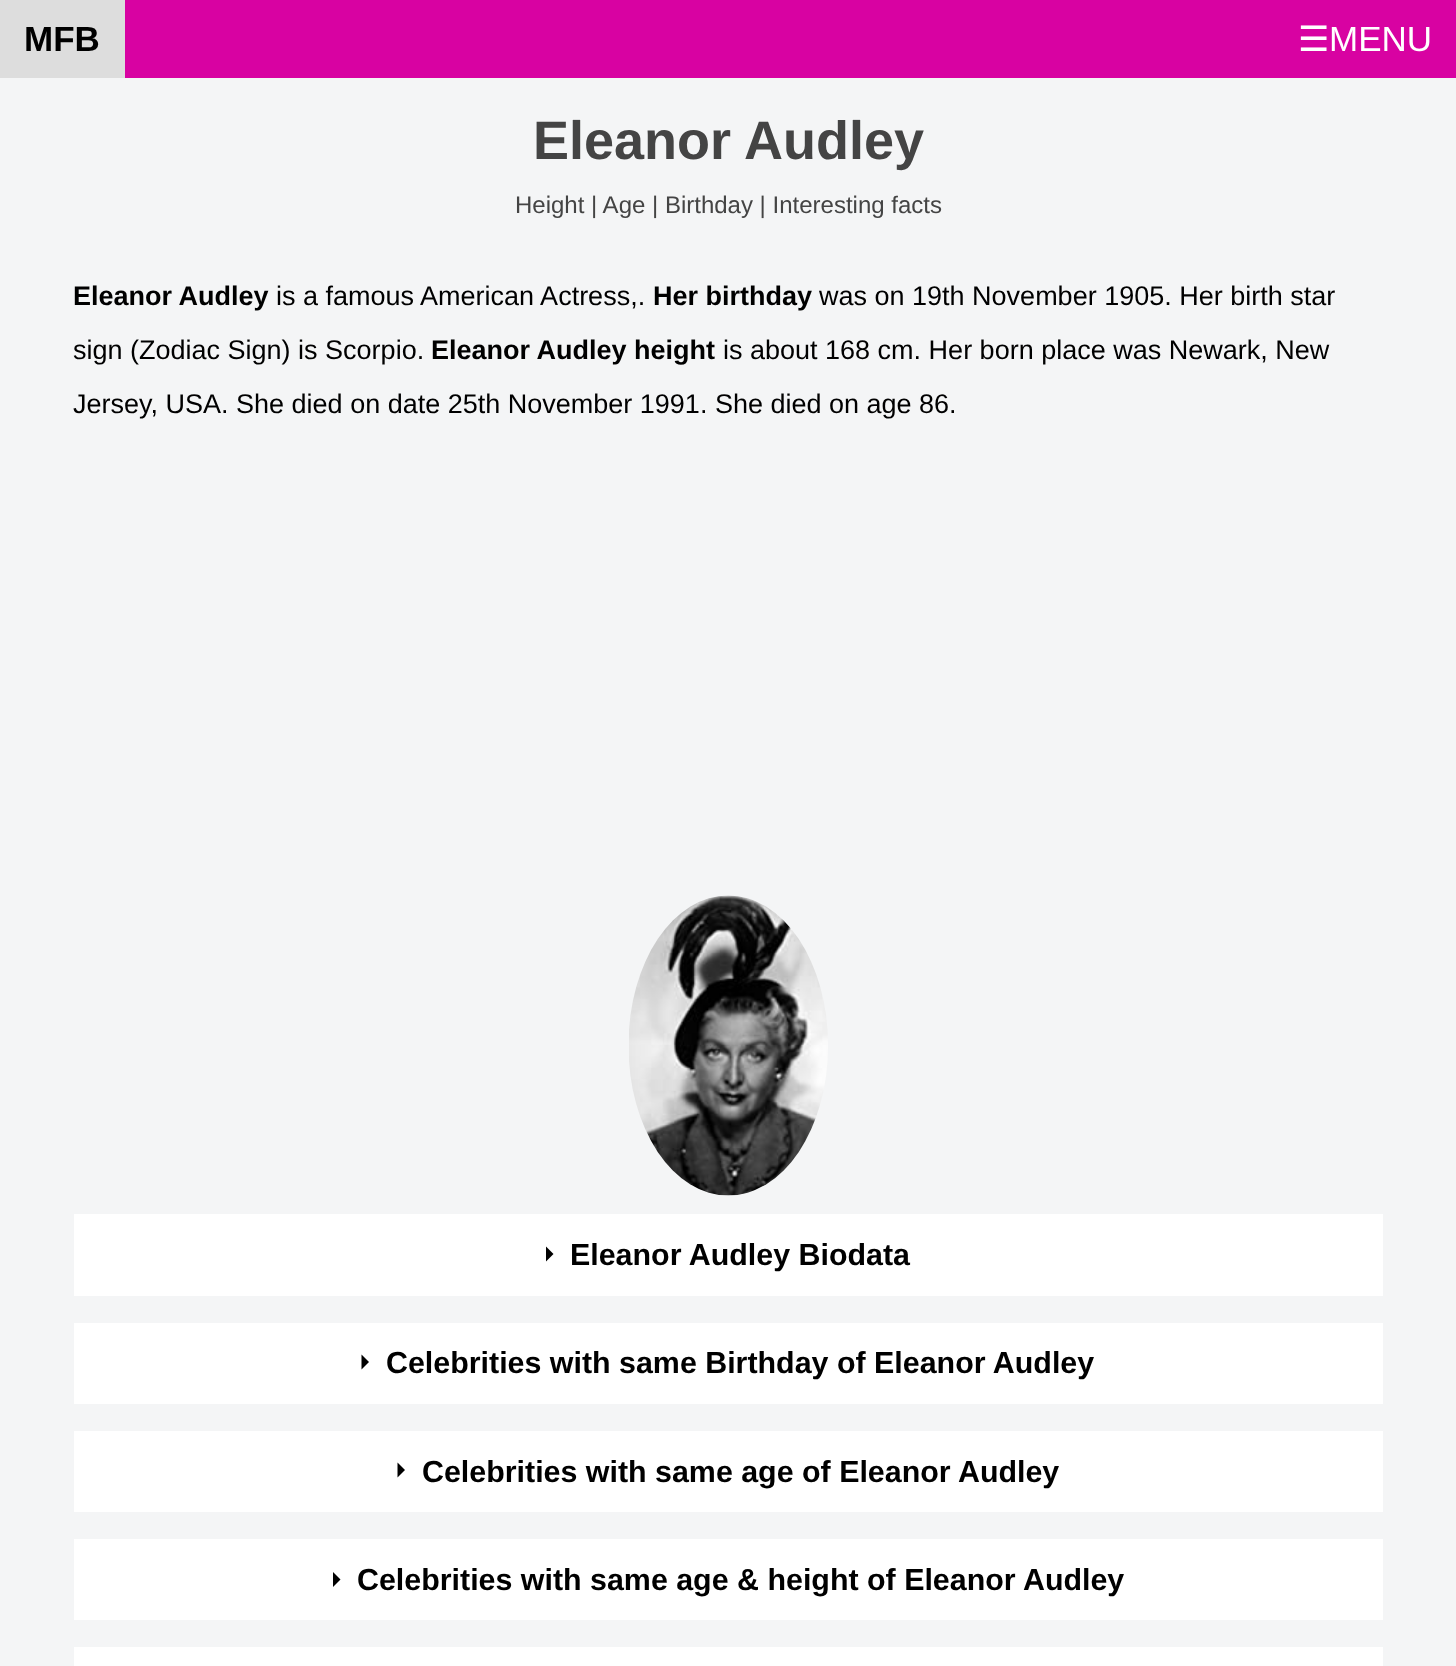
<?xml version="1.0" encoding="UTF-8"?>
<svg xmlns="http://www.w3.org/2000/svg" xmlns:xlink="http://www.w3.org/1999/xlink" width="1456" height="1666">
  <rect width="100%" height="100%" fill="#f4f5f6" />
  <rect x="125" width="1331" height="78" fill="#d802a2" />
  <rect width="125" height="78" fill="#dddddd" />
  <image x="629" y="895" width="199" height="301" xlink:href="image1.png" />
  <rect x="74" y="1214" width="1309" height="82" fill="#ffffff" />
  <path d="M 546 1261.5 v -15 l 7.5 7.5 z" fill="#000000" />
  <rect x="74" y="1323" width="1309" height="81" fill="#ffffff" />
  <path d="M 361.5 1369.5 v -15 l 7.5 7.5 z" fill="#000000" />
  <rect x="74" y="1431" width="1309" height="81" fill="#ffffff" />
  <path d="M 397.5 1477.5 v -15 l 7.5 7.5 z" fill="#000000" />
  <rect x="74" y="1539" width="1309" height="81" fill="#ffffff" />
  <path d="M 333 1587 v -15 l 7.5 7.5 z" fill="#000000" />
  <rect x="74" y="1647" width="1309" height="19" fill="#ffffff" />
  <text x="24" y="51" style="font-family: Liberation Sans; font-size: 35px; font-weight: bold; fill: #000000">MFB</text>
  <text x="1298" y="51" style="font-family: DejaVu Sans; font-size: 35px; fill: #ffffff">☰</text>
  <text x="1329" y="51" style="font-family: Liberation Sans; font-size: 35px; fill: #ffffff">MENU</text>
  <text x="533" y="159" style="font-family: Liberation Sans; font-size: 54px; font-weight: bold; fill: #444444">Eleanor Audley</text>
  <text x="515" y="213" style="font-family: Liberation Sans; font-size: 24px; fill: #444444">Height | Age | Birthday | Interesting facts</text>
  <text x="73" y="305" style="font-family: Liberation Sans; font-size: 27px; font-weight: bold; fill: #000000">Eleanor Audley</text>
  <text x="276" y="305" style="font-family: Liberation Sans; font-size: 27px; fill: #000000">is a famous American Actress,.</text>
  <text x="653" y="305" style="font-family: Liberation Sans; font-size: 27px; font-weight: bold; fill: #000000">Her birthday</text>
  <text x="819" y="305" style="font-family: Liberation Sans; font-size: 27px; fill: #000000">was on 19th November 1905. Her birth star</text>
  <text x="73" y="359" style="font-family: Liberation Sans; font-size: 27px; fill: #000000">sign (Zodiac Sign) is Scorpio.</text>
  <text x="431" y="359" style="font-family: Liberation Sans; font-size: 27px; font-weight: bold; fill: #000000">Eleanor Audley height</text>
  <text x="723" y="359" style="font-family: Liberation Sans; font-size: 27px; fill: #000000">is about 168 cm. Her born place was Newark, New</text>
  <text x="73" y="413" style="font-family: Liberation Sans; font-size: 27px; fill: #000000">Jersey, USA. She died on date 25th November 1991. She died on age 86.</text>
  <text x="570" y="1265" style="font-family: Liberation Sans; font-size: 30.4px; font-weight: bold; fill: #000000">Eleanor Audley Biodata</text>
  <text x="386" y="1373" style="font-family: Liberation Sans; font-size: 30.4px; font-weight: bold; fill: #000000">Celebrities with same Birthday of Eleanor Audley</text>
  <text x="422" y="1482" style="font-family: Liberation Sans; font-size: 30.4px; font-weight: bold; fill: #000000">Celebrities with same age of Eleanor Audley</text>
  <text x="357" y="1590" style="font-family: Liberation Sans; font-size: 30.4px; font-weight: bold; fill: #000000">Celebrities with same age &amp; height of Eleanor Audley</text>
</svg>
